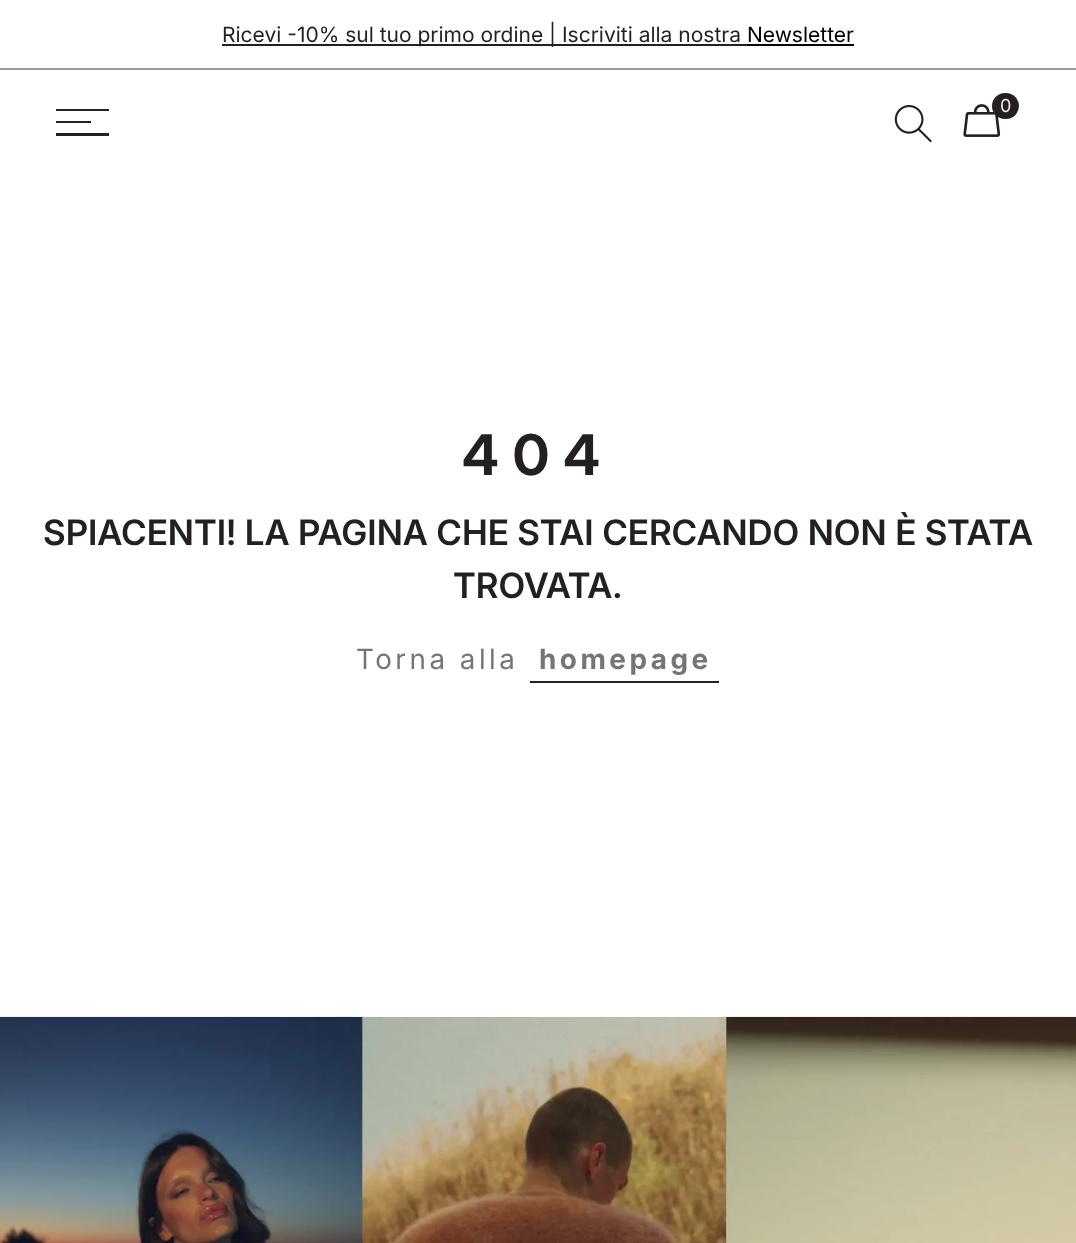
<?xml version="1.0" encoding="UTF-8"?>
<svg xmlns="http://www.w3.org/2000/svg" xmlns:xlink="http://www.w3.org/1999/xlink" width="1076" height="1243">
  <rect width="100%" height="100%" fill="#ffffff" />
  <rect y="68" width="1076" height="2" fill="#999999" />
  <rect x="222" y="44" width="525" height="2" fill="#241f20" />
  <rect x="747" y="44" width="107" height="2" fill="#000000" />
  <image x="894" y="105" width="38" height="38" xlink:href="image1.png" />
  <image x="963" y="104" width="38" height="33" xlink:href="image2.png" />
  <rect x="992" y="93" width="27" height="26" rx="13" fill="#241f20" />
  <rect x="56" y="109" width="53" height="2" fill="#241f20" />
  <rect x="56" y="121" width="35" height="2" fill="#241f20" />
  <rect x="56" y="133" width="53" height="3" fill="#241f20" />
  <rect x="530" y="681" width="189" height="2" fill="#241f20" />
  <image x="0" y="1016" width="1076" height="227" xlink:href="image3.png" />
  <text x="222" y="42" style="font-family: 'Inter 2'; font-size: 21px; fill: #241f20">Ricevi -10% sul tuo primo ordine | Iscriviti alla nostra</text>
  <text x="747" y="42" style="font-family: 'Inter 2'; font-size: 21px; fill: #000000">Newsletter</text>
  <text x="1000" y="112" style="font-family: 'Inter 2'; font-size: 18px; fill: #efece7">0</text>
  <text x="462" y="475" style="font-family: Inter; font-size: 56px; font-weight: bold; letter-spacing: 14px; fill: #241f20">404</text>
  <text x="43" y="545" style="font-family: Inter; font-size: 35px; font-weight: 600; fill: #241f20">SPIACENTI! LA PAGINA CHE STAI CERCANDO NON È STATA</text>
  <text x="453" y="598" style="font-family: Inter; font-size: 35px; font-weight: 600; fill: #241f20">TROVATA.</text>
  <text x="356" y="669" style="font-family: Inter; font-size: 28px; letter-spacing: 3.5px; fill: #757575">Torna alla</text>
  <text x="539" y="669" style="font-family: 'Inter 2'; font-size: 28px; font-weight: bold; letter-spacing: 3.5px; fill: #757575">homepage</text>
</svg>
